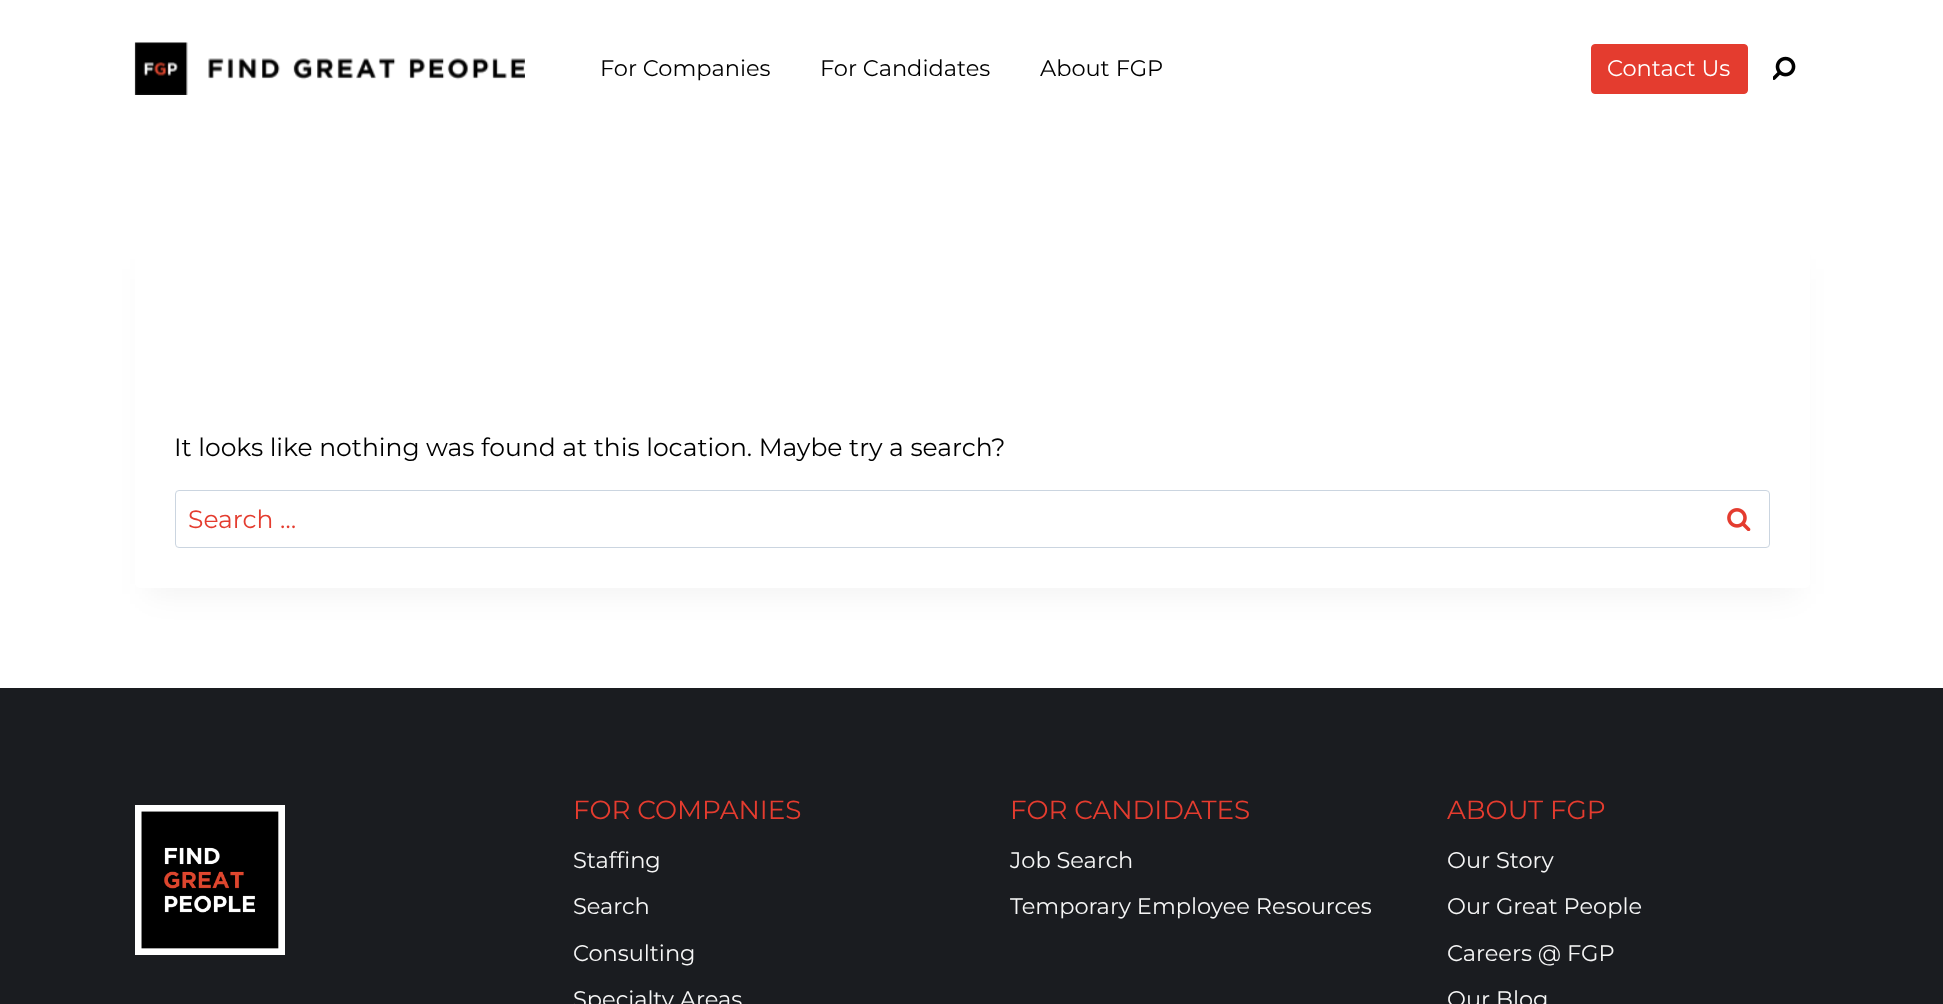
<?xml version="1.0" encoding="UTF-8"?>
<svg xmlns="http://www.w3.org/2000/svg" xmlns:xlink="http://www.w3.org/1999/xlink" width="1943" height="1004">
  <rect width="100%" height="100%" fill="#ffffff" />
  <image x="134" y="42" width="391" height="53" xlink:href="image1.png" />
  <rect x="1591.5" y="44.5" width="156" height="49" rx="3.5" fill="#e43c2f" stroke="#e43c2f" />
  <image x="1773" y="56" width="23" height="24" xlink:href="image2.png" />
  <rect x="148" y="269" width="1650" height="325" fill="#000000" fill-opacity="0.05" filter="blur(15.5px)" />
  <rect x="135" y="238" width="1675" height="350" rx="5" fill="#ffffff" />
  <rect x="175.5" y="490.5" width="1594" height="57" rx="3.5" fill="none" stroke="#cbd5e0" />
  <image x="1727" y="508" width="24" height="23" xlink:href="image3.png" />
  <rect y="688" width="1943" height="316" fill="#1a1c20" />
  <image x="135" y="805" width="150" height="150" xlink:href="image4.png" />
  <text x="600" y="76" style="font-family: Montserrat; font-size: 22.5px; fill: #000000">For Companies</text>
  <text x="820" y="76" style="font-family: Montserrat; font-size: 22.5px; fill: #000000">For Candidates</text>
  <text x="1040" y="76" style="font-family: Montserrat; font-size: 22.5px; fill: #000000">About FGP</text>
  <text x="1607" y="76" style="font-family: Montserrat; font-size: 22.5px; fill: #ffffff">Contact Us</text>
  <text x="174" y="456" style="font-family: Montserrat; font-size: 25px; fill: #000000">It looks like nothing was found at this location. Maybe try a search?</text>
  <text x="188" y="528" style="font-family: Montserrat; font-size: 25px; fill: #e43c2f">Search …</text>
  <text x="573" y="819" style="font-family: Montserrat; font-size: 26.25px; fill: #e43c2f">FOR COMPANIES</text>
  <text x="573" y="868" style="font-family: Montserrat; font-size: 22.5px; fill: #f6f6f6">Staffing</text>
  <text x="573" y="914" style="font-family: Montserrat; font-size: 22.5px; fill: #f6f6f6">Search</text>
  <text x="573" y="961" style="font-family: Montserrat; font-size: 22.5px; fill: #f6f6f6">Consulting</text>
  <text x="573" y="1007" style="font-family: Montserrat; font-size: 22.5px; fill: #f6f6f6">Specialty Areas</text>
  <text x="1010" y="819" style="font-family: Montserrat; font-size: 26.25px; fill: #e43c2f">FOR CANDIDATES</text>
  <text x="1010" y="868" style="font-family: Montserrat; font-size: 22.5px; fill: #f6f6f6">Job Search</text>
  <text x="1010" y="914" style="font-family: Montserrat; font-size: 22.5px; fill: #f6f6f6">Temporary Employee Resources</text>
  <text x="1447" y="819" style="font-family: Montserrat; font-size: 26.25px; fill: #e43c2f">ABOUT FGP</text>
  <text x="1447" y="868" style="font-family: Montserrat; font-size: 22.5px; fill: #f6f6f6">Our Story</text>
  <text x="1447" y="914" style="font-family: Montserrat; font-size: 22.5px; fill: #f6f6f6">Our Great People</text>
  <text x="1447" y="961" style="font-family: Montserrat; font-size: 22.5px; fill: #f6f6f6">Careers @ FGP</text>
  <text x="1447" y="1007" style="font-family: Montserrat; font-size: 22.5px; fill: #f6f6f6">Our Blog</text>
</svg>
